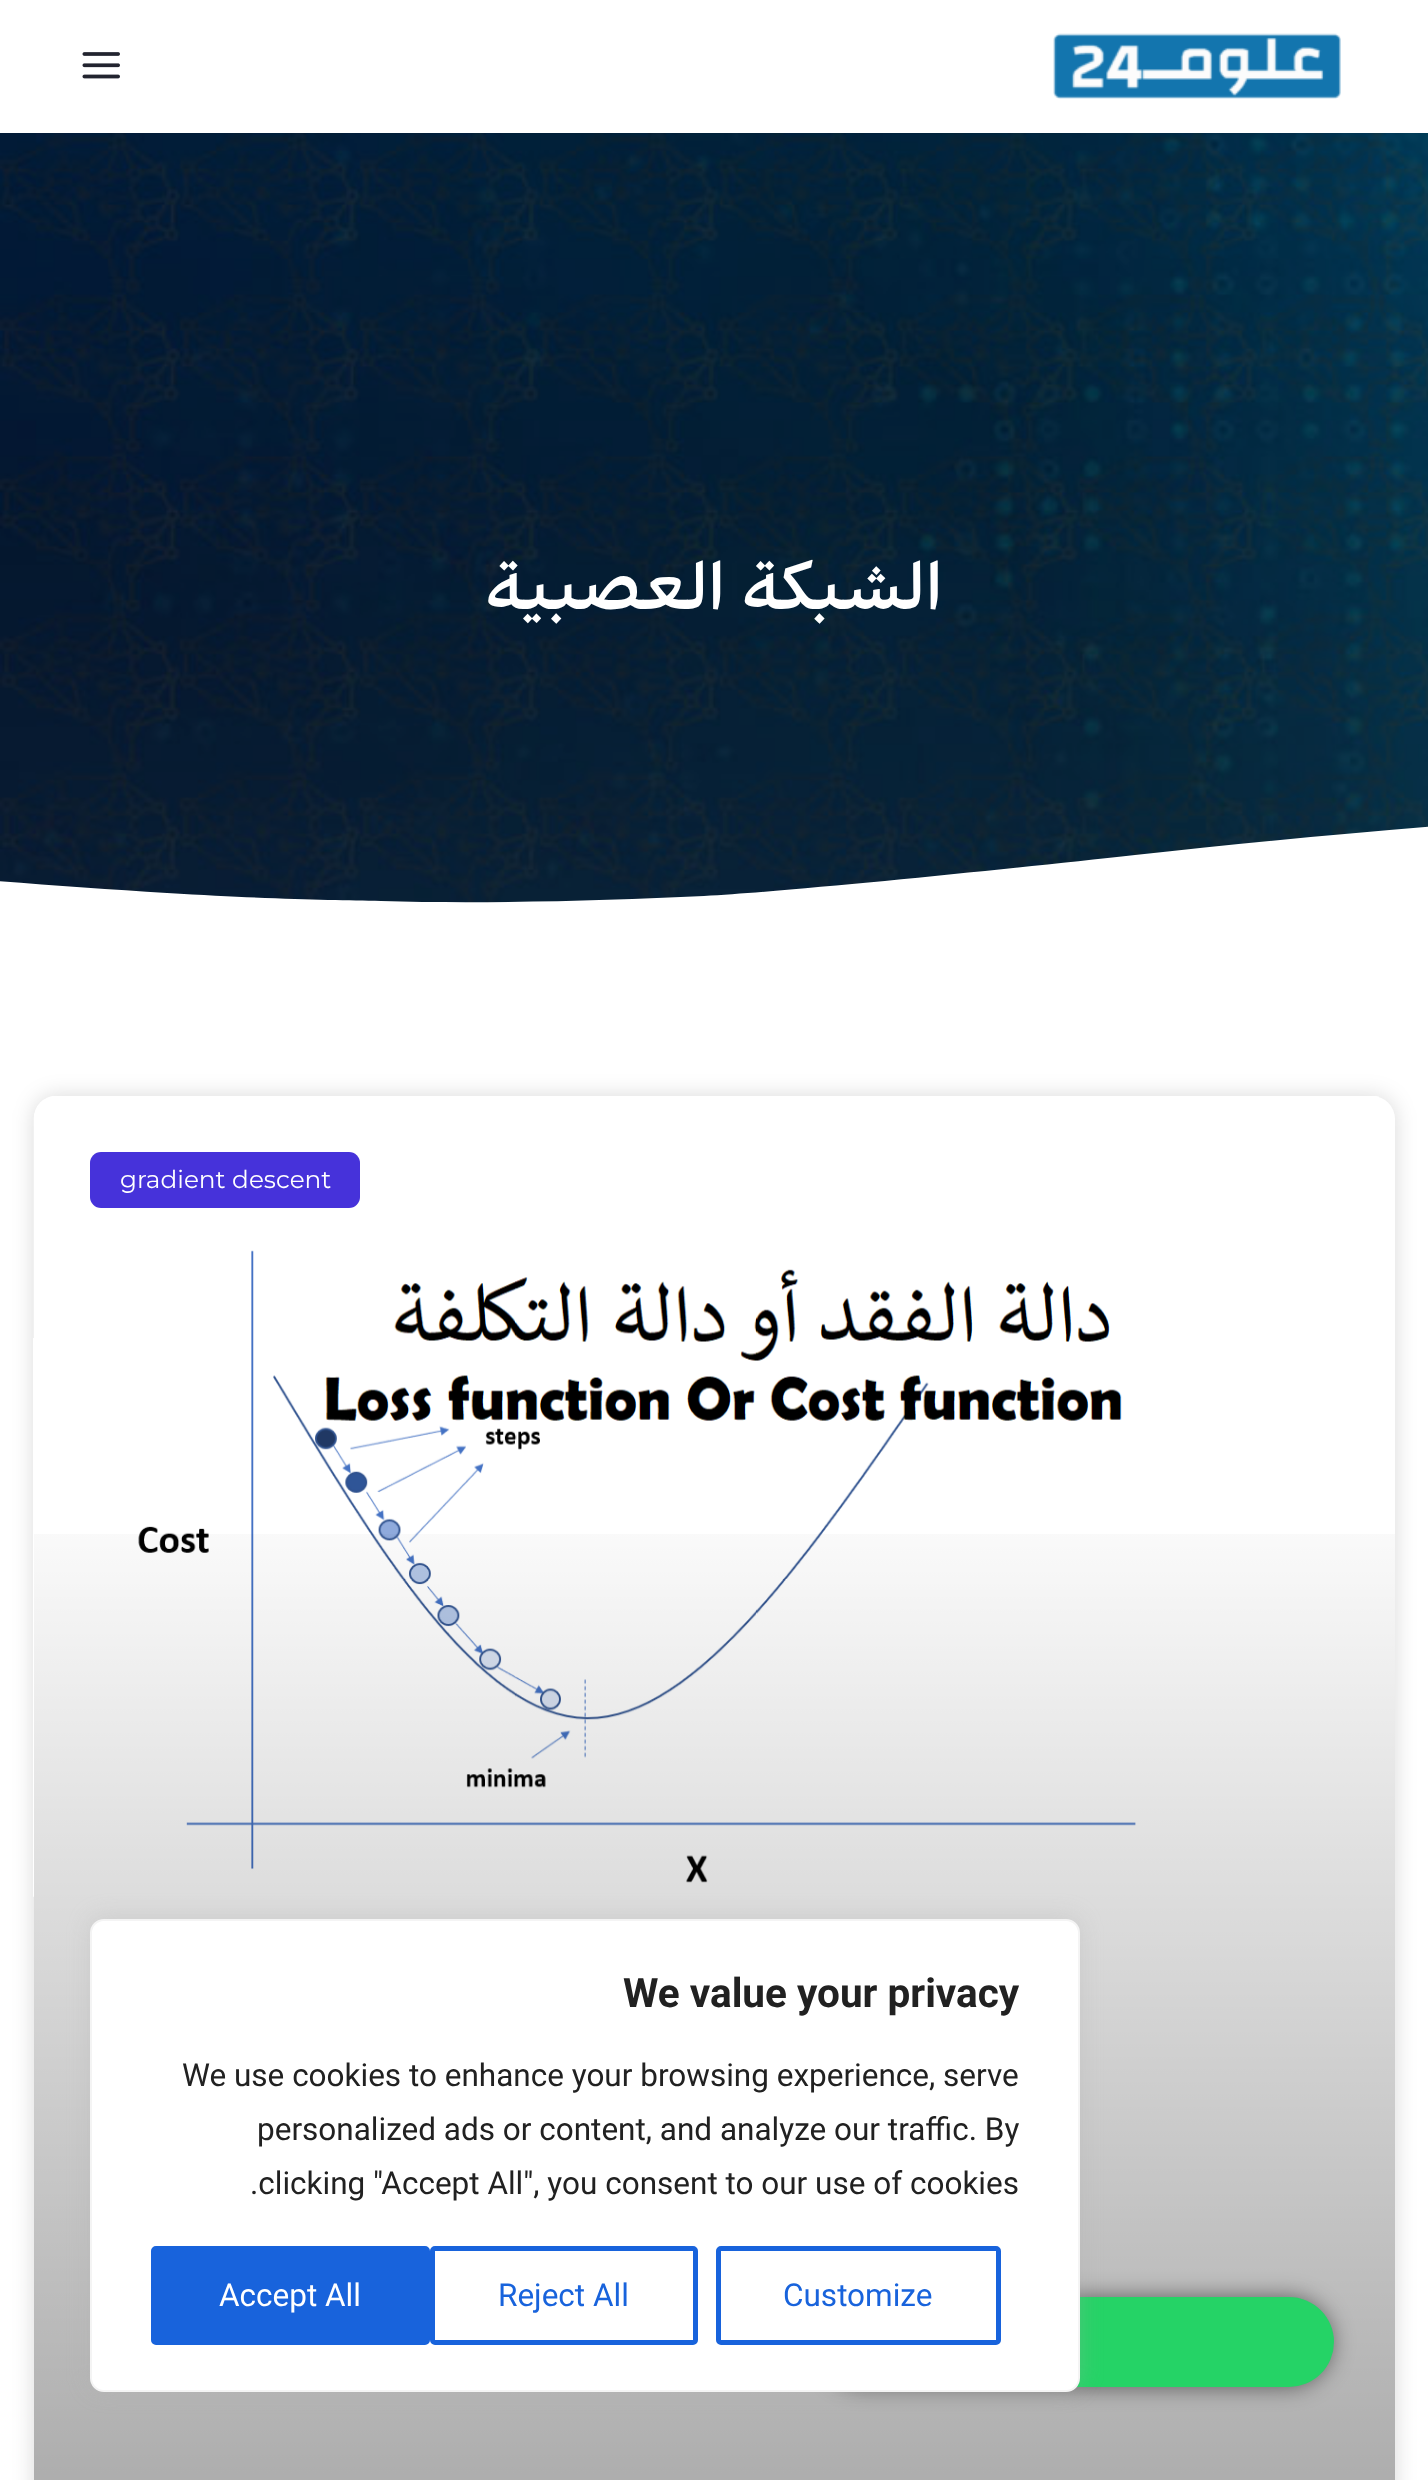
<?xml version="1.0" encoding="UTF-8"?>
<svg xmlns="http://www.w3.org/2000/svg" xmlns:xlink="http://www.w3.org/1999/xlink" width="1428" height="2480">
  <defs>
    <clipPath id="clip1"><rect y="794" width="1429" height="113" /></clipPath>
    <linearGradient id="g1" gradientUnits="userSpaceOnUse" x1="714" y1="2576" x2="714" y2="1096"><stop offset="0" stop-color="#000000" stop-opacity="0.35" /><stop offset="0.75" stop-color="#000000" stop-opacity="0" /></linearGradient>
  </defs>
  <rect width="100%" height="100%" fill="#ffffff" />
  <image x="82" y="52" width="38" height="27" xlink:href="image1.png" />
  <image x="1053" y="33" width="288" height="66" xlink:href="image2.png" />
  <image x="0" y="133" width="1428" height="770" xlink:href="image3.png" />
  <g clip-path="url(#clip1)">
    <path d="M 381 901 c 96 3 220 0 323 -5 c 102 -6 304 -27 431 -41 c 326 -36 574 -50 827 -56 c 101 -2 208 -3 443 3 c 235 7 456 29 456 29 v 78 h -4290 v -34 c 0 0 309 -37 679 -35 c 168 1 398 8 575 26 c 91 9 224 20 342 27 c 117 7 169 7 214 8 z" fill="#ffffff" />
  </g>
  <rect x="34" y="1096" width="1361" height="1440" rx="23" fill="#000000" fill-opacity="0.15" filter="blur(11px)" />
  <rect x="34" y="1096" width="1361" height="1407" rx="23" fill="#ffffff" />
  <image x="33" y="1096" width="1346" height="801" xlink:href="image4.png" />
  <rect x="34" y="1534" width="1361" height="946" fill="url(#g1)" />
  <rect x="90" y="1152" width="270" height="56" rx="11" fill="#4632da" />
  <rect x="819" y="2297" width="513" height="90" rx="45" fill="#000000" fill-opacity="0.5" filter="blur(11px)" />
  <rect x="821" y="2297" width="513" height="90" rx="45" fill="#25d366" />
  <rect x="90" y="1917" width="990" height="473" rx="14" fill="#acabab" fill-opacity="0.3" filter="blur(11px)" />
  <rect x="91" y="1920" width="988" height="471" rx="13" fill="#ffffff" stroke="#f4f4f4" stroke-width="2" />
  <rect x="153.5" y="2248.5" width="274" height="94" rx="2.5" fill="#1863dc" stroke="#1863dc" stroke-width="5" />
  <rect x="432.5" y="2248.5" width="263" height="94" rx="2.5" fill="none" stroke="#1863dc" stroke-width="5" />
  <rect x="718.5" y="2248.5" width="280" height="94" rx="2.5" fill="none" stroke="#1863dc" stroke-width="5" />
  <text x="943" y="609" style="font-family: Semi; font-size: 67.5px; font-weight: 600; direction: rtl; fill: #ffffff">الشبكة العصبية</text>
  <text x="120" y="1188" style="font-family: Montserrat; font-size: 24.75px; fill: #ffffff">gradient descent</text>
  <text x="623" y="2007" style="font-family: Roboto; font-size: 40.5px; font-weight: bold; fill: #212121">We value your privacy</text>
  <text x="182" y="2086" style="font-family: Roboto; font-size: 31.5px; fill: #212121">We use cookies to enhance your browsing experience, serve</text>
  <text x="257" y="2140" style="font-family: Roboto; font-size: 31.5px; fill: #212121">personalized ads or content, and analyze our traffic. By</text>
  <text x="250" y="2194" style="font-family: Roboto; font-size: 31.5px; fill: #212121">.clicking "Accept All", you consent to our use of cookies</text>
  <text x="219" y="2306" style="font-family: Roboto; font-size: 31.5px; fill: #ffffff">Accept All</text>
  <text x="498" y="2306" style="font-family: Roboto; font-size: 31.5px; fill: #1863dc">Reject All</text>
  <text x="783" y="2306" style="font-family: Roboto; font-size: 31.5px; fill: #1863dc">Customize</text>
</svg>
